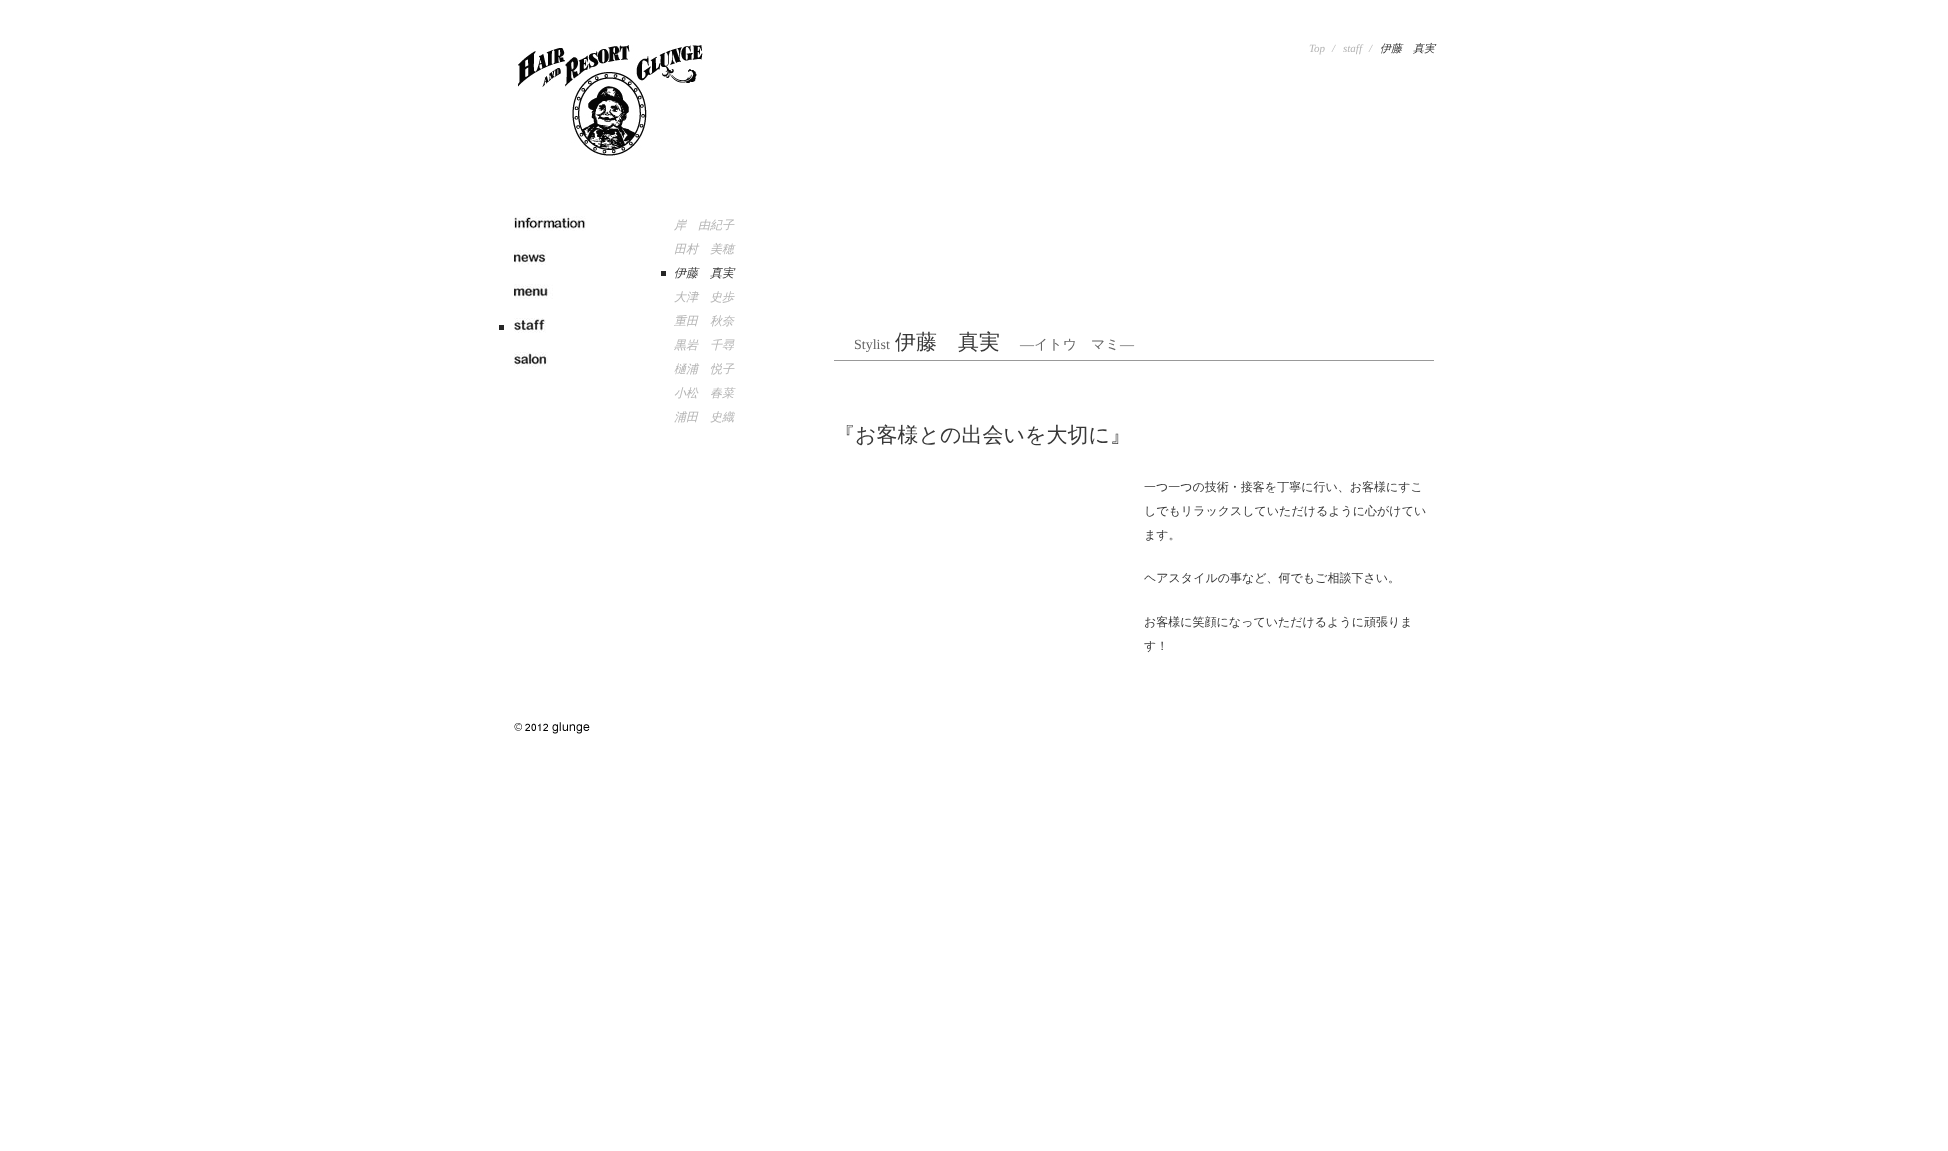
<?xml version="1.0" encoding="UTF-8"?>
<svg xmlns="http://www.w3.org/2000/svg" xmlns:xlink="http://www.w3.org/1999/xlink" width="1948" height="1151">
  <rect width="100%" height="100%" fill="#ffffff" />
  <image x="518" y="45" width="185" height="111" xlink:href="image1.png" />
  <image x="514" y="216" width="72" height="15" xlink:href="image2.png" />
  <image x="514" y="250" width="32" height="15" xlink:href="image3.png" />
  <image x="514" y="284" width="39" height="15" xlink:href="image4.png" />
  <rect x="499" y="325" width="5" height="5" fill="#262626" />
  <image x="514" y="318" width="32" height="15" xlink:href="image5.png" />
  <image x="514" y="352" width="34" height="15" xlink:href="image6.png" />
  <rect x="661" y="271" width="5" height="5" fill="#262626" />
  <image x="514" y="722" width="76" height="12" xlink:href="image7.png" />
  <rect x="834" y="360" width="600" height="1" fill="#999999" />
  <text x="674" y="229" style="font-family: WenQuanYi Zen Hei; font-size: 12px; font-weight: 500; font-style: italic; fill: #b4b4b4">岸　由紀子</text>
  <text x="674" y="253" style="font-family: WenQuanYi Zen Hei; font-size: 12px; font-weight: 500; font-style: italic; fill: #b4b4b4">田村　美穂</text>
  <text x="674" y="277" style="font-family: WenQuanYi Zen Hei; font-size: 12px; font-weight: 500; font-style: italic; fill: #383838">伊藤　真実</text>
  <text x="674" y="301" style="font-family: WenQuanYi Zen Hei; font-size: 12px; font-weight: 500; font-style: italic; fill: #b4b4b4">大津　史歩</text>
  <text x="674" y="325" style="font-family: WenQuanYi Zen Hei; font-size: 12px; font-weight: 500; font-style: italic; fill: #b4b4b4">重田　秋奈</text>
  <text x="674" y="349" style="font-family: WenQuanYi Zen Hei; font-size: 12px; font-weight: 500; font-style: italic; fill: #b4b4b4">黒岩　千尋</text>
  <text x="674" y="373" style="font-family: WenQuanYi Zen Hei; font-size: 12px; font-weight: 500; font-style: italic; fill: #b4b4b4">樋浦　悦子</text>
  <text x="674" y="397" style="font-family: WenQuanYi Zen Hei; font-size: 12px; font-weight: 500; font-style: italic; fill: #b4b4b4">小松　春菜</text>
  <text x="674" y="421" style="font-family: WenQuanYi Zen Hei; font-size: 12px; font-weight: 500; font-style: italic; fill: #b4b4b4">浦田　史織</text>
  <text x="1309" y="52" style="font-family: Liberation Serif; font-size: 11px; font-style: italic; fill: #b4b4b4">Top</text>
  <text x="1332" y="52" style="font-family: Liberation Serif; font-size: 11px; font-style: italic; fill: #b4b4b4">/</text>
  <text x="1343" y="52" style="font-family: Liberation Serif; font-size: 11px; font-style: italic; fill: #b4b4b4">staff</text>
  <text x="1369" y="52" style="font-family: Liberation Serif; font-size: 11px; font-style: italic; fill: #b4b4b4">/</text>
  <text x="1380" y="52" style="font-family: WenQuanYi Zen Hei; font-size: 11px; font-weight: 500; font-style: italic; fill: #383838">伊藤　真実</text>
  <text x="854" y="349" style="font-family: Liberation Serif; font-size: 14px; fill: #666666">Stylist</text>
  <text x="895" y="349" style="font-family: WenQuanYi Zen Hei; font-size: 21px; font-weight: 500; fill: #383838">伊藤　真実</text>
  <text x="1020" y="349" style="font-family: Liberation Serif; font-size: 14px; fill: #666666">—</text>
  <text x="1034" y="349" style="font-family: WenQuanYi Zen Hei; font-size: 14px; font-weight: 500; fill: #666666">イトウ　マミ</text>
  <text x="1120" y="349" style="font-family: Liberation Serif; font-size: 14px; fill: #666666">—</text>
  <text x="834" y="442" style="font-family: WenQuanYi Zen Hei; font-size: 21px; font-weight: 500; fill: #383838">『お客様との出会いを大切に』</text>
  <text x="1144" y="491" style="font-family: WenQuanYi Zen Hei; font-size: 12px; font-weight: 500; fill: #383838">一つ一つの技術・接客を丁寧に行い、お客様にすこ</text>
  <text x="1144" y="515" style="font-family: WenQuanYi Zen Hei; font-size: 12px; font-weight: 500; fill: #383838">しでもリラックスしていただけるように心がけてい</text>
  <text x="1144" y="539" style="font-family: WenQuanYi Zen Hei; font-size: 12px; font-weight: 500; fill: #383838">ます。</text>
  <text x="1144" y="582" style="font-family: WenQuanYi Zen Hei; font-size: 12px; font-weight: 500; fill: #383838">ヘアスタイルの事など、何でもご相談下さい。</text>
  <text x="1144" y="626" style="font-family: WenQuanYi Zen Hei; font-size: 12px; font-weight: 500; fill: #383838">お客様に笑顔になっていただけるように頑張りま</text>
  <text x="1144" y="650" style="font-family: WenQuanYi Zen Hei; font-size: 12px; font-weight: 500; fill: #383838">す！</text>
</svg>
